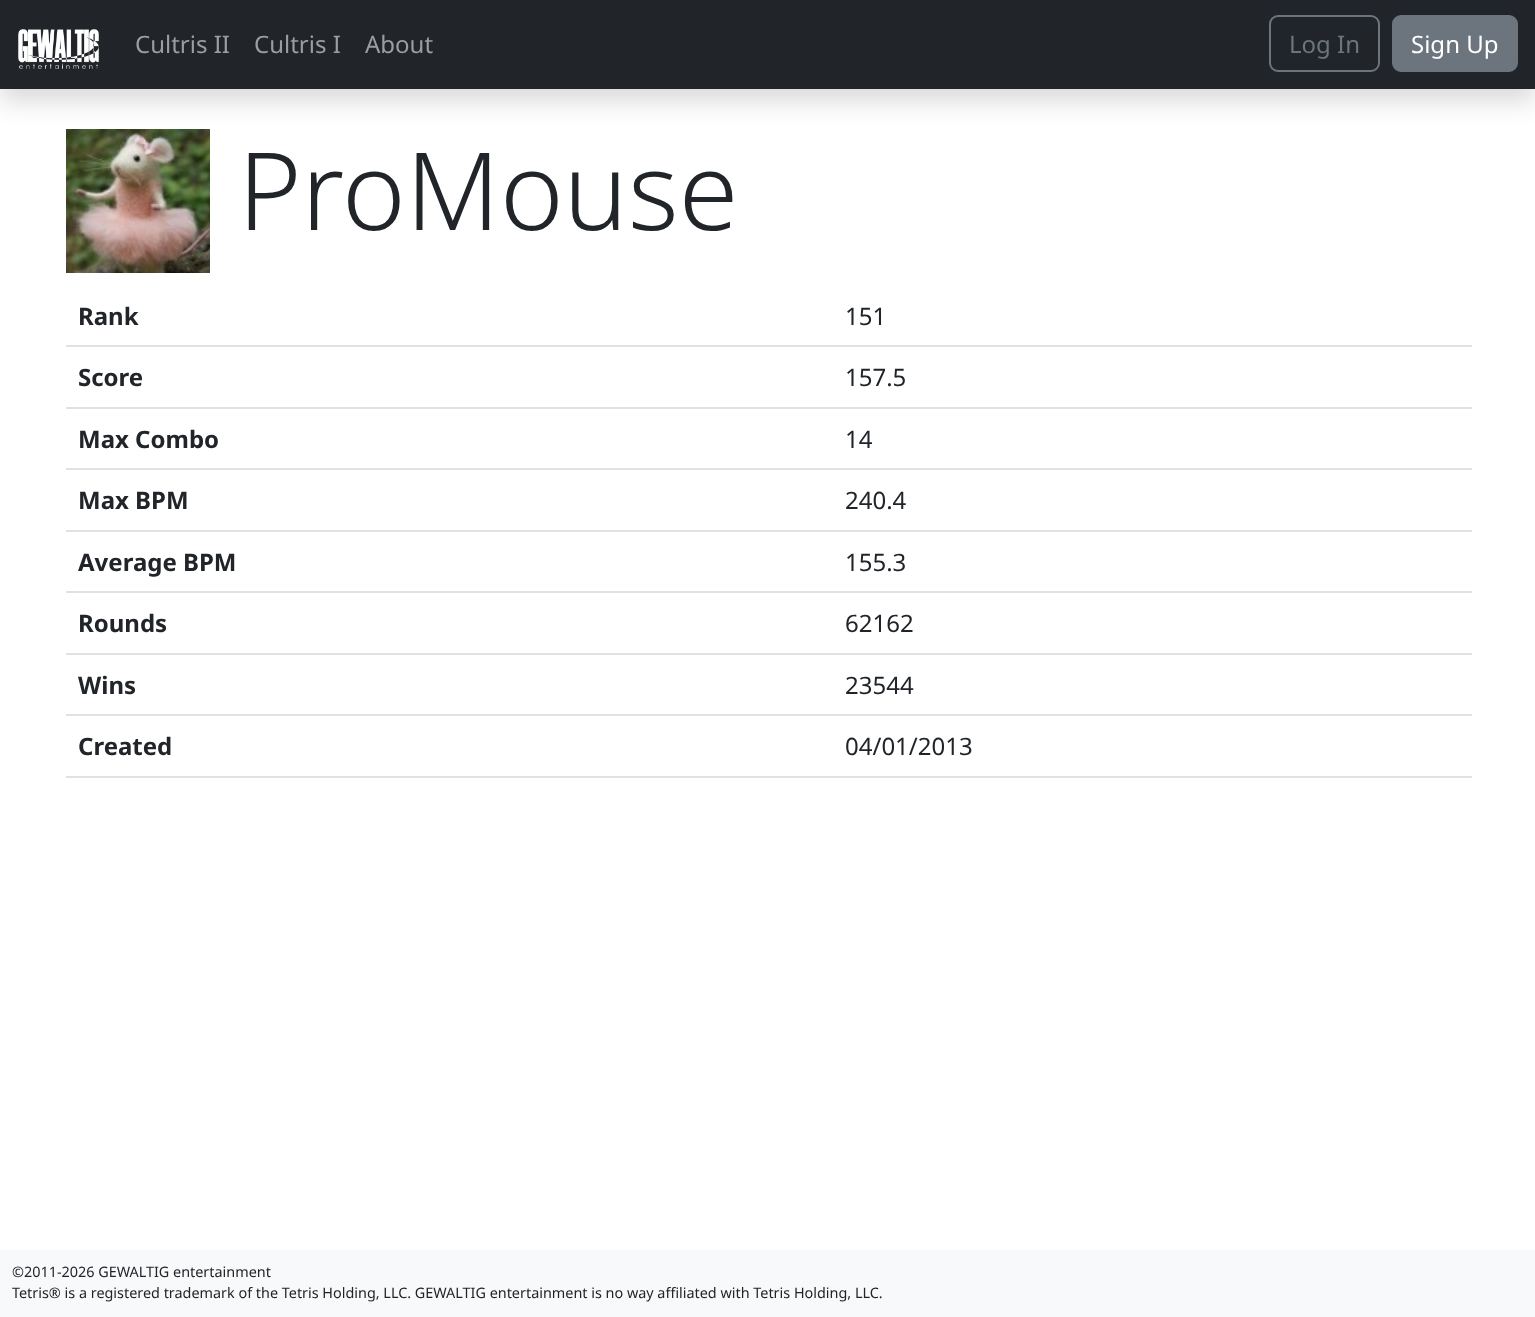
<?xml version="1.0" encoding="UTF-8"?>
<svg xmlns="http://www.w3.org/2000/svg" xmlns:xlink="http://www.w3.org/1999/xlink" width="1535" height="1317">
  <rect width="100%" height="100%" fill="#ffffff" />
  <image x="66" y="129" width="144" height="144" xlink:href="image2.png" />
  <rect y="12" width="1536" height="89" fill="#000000" fill-opacity="0.15" filter="blur(12px)" />
  <rect width="1535" height="89" fill="#212529" />
  <image x="18" y="29" width="81" height="40" xlink:href="image1.png" />
  <rect x="1270" y="16" width="109" height="55" rx="8" fill="none" stroke="#6c757d" stroke-width="2" />
  <rect x="1393" y="16" width="124" height="55" rx="8" fill="#6c757d" stroke="#6c757d" stroke-width="2" />
  <rect x="66" y="345" width="1406" height="2" fill="#dee2e6" />
  <rect x="66" y="407" width="1406" height="2" fill="#dee2e6" />
  <rect x="66" y="468" width="1406" height="2" fill="#dee2e6" />
  <rect x="66" y="530" width="1406" height="2" fill="#dee2e6" />
  <rect x="66" y="591" width="1406" height="2" fill="#dee2e6" />
  <rect x="66" y="653" width="1406" height="2" fill="#dee2e6" />
  <rect x="66" y="714" width="1406" height="2" fill="#dee2e6" />
  <rect x="66" y="776" width="1406" height="2" fill="#dee2e6" />
  <rect y="1250" width="1535" height="67" fill="#f8f9fa" />
  <text x="135" y="53" style="font-family: Noto Sans; font-size: 24px; fill: #9b9d9f">Cultris II</text>
  <text x="254" y="53" style="font-family: Noto Sans; font-size: 24px; fill: #9b9d9f">Cultris I</text>
  <text x="365" y="53" style="font-family: Noto Sans; font-size: 24px; fill: #9b9d9f">About</text>
  <text x="1289" y="53" style="font-family: Noto Sans; font-size: 24px; fill: #6c757d">Log In</text>
  <text x="1411" y="53" style="font-family: Noto Sans; font-size: 24px; fill: #ffffff">Sign Up</text>
  <text x="238" y="230" style="font-family: Noto Sans; font-size: 108px; font-weight: 300; fill: #212529">ProMouse</text>
  <text x="78" y="325" style="font-family: Noto Sans; font-size: 24px; font-weight: bold; fill: #212529">Rank</text>
  <text x="845" y="325" style="font-family: Noto Sans; font-size: 24px; fill: #212529">151</text>
  <text x="78" y="386" style="font-family: Noto Sans; font-size: 24px; font-weight: bold; fill: #212529">Score</text>
  <text x="845" y="386" style="font-family: Noto Sans; font-size: 24px; fill: #212529">157.5</text>
  <text x="78" y="448" style="font-family: Noto Sans; font-size: 24px; font-weight: bold; fill: #212529">Max Combo</text>
  <text x="845" y="448" style="font-family: Noto Sans; font-size: 24px; fill: #212529">14</text>
  <text x="78" y="509" style="font-family: Noto Sans; font-size: 24px; font-weight: bold; fill: #212529">Max BPM</text>
  <text x="845" y="509" style="font-family: Noto Sans; font-size: 24px; fill: #212529">240.4</text>
  <text x="78" y="571" style="font-family: Noto Sans; font-size: 24px; font-weight: bold; fill: #212529">Average BPM</text>
  <text x="845" y="571" style="font-family: Noto Sans; font-size: 24px; fill: #212529">155.3</text>
  <text x="78" y="632" style="font-family: Noto Sans; font-size: 24px; font-weight: bold; fill: #212529">Rounds</text>
  <text x="845" y="632" style="font-family: Noto Sans; font-size: 24px; fill: #212529">62162</text>
  <text x="78" y="694" style="font-family: Noto Sans; font-size: 24px; font-weight: bold; fill: #212529">Wins</text>
  <text x="845" y="694" style="font-family: Noto Sans; font-size: 24px; fill: #212529">23544</text>
  <text x="78" y="755" style="font-family: Noto Sans; font-size: 24px; font-weight: bold; fill: #212529">Created</text>
  <text x="845" y="755" style="font-family: Noto Sans; font-size: 24px; fill: #212529">04/01/2013</text>
  <text x="12" y="1277" style="font-family: Noto Sans; font-size: 14.4px; fill: #212529">©2011-2026 GEWALTIG entertainment</text>
  <text x="12" y="1298" style="font-family: Noto Sans; font-size: 14.4px; fill: #212529">Tetris® is a registered trademark of the Tetris Holding, LLC. GEWALTIG entertainment is no way affiliated with Tetris Holding, LLC.</text>
</svg>
